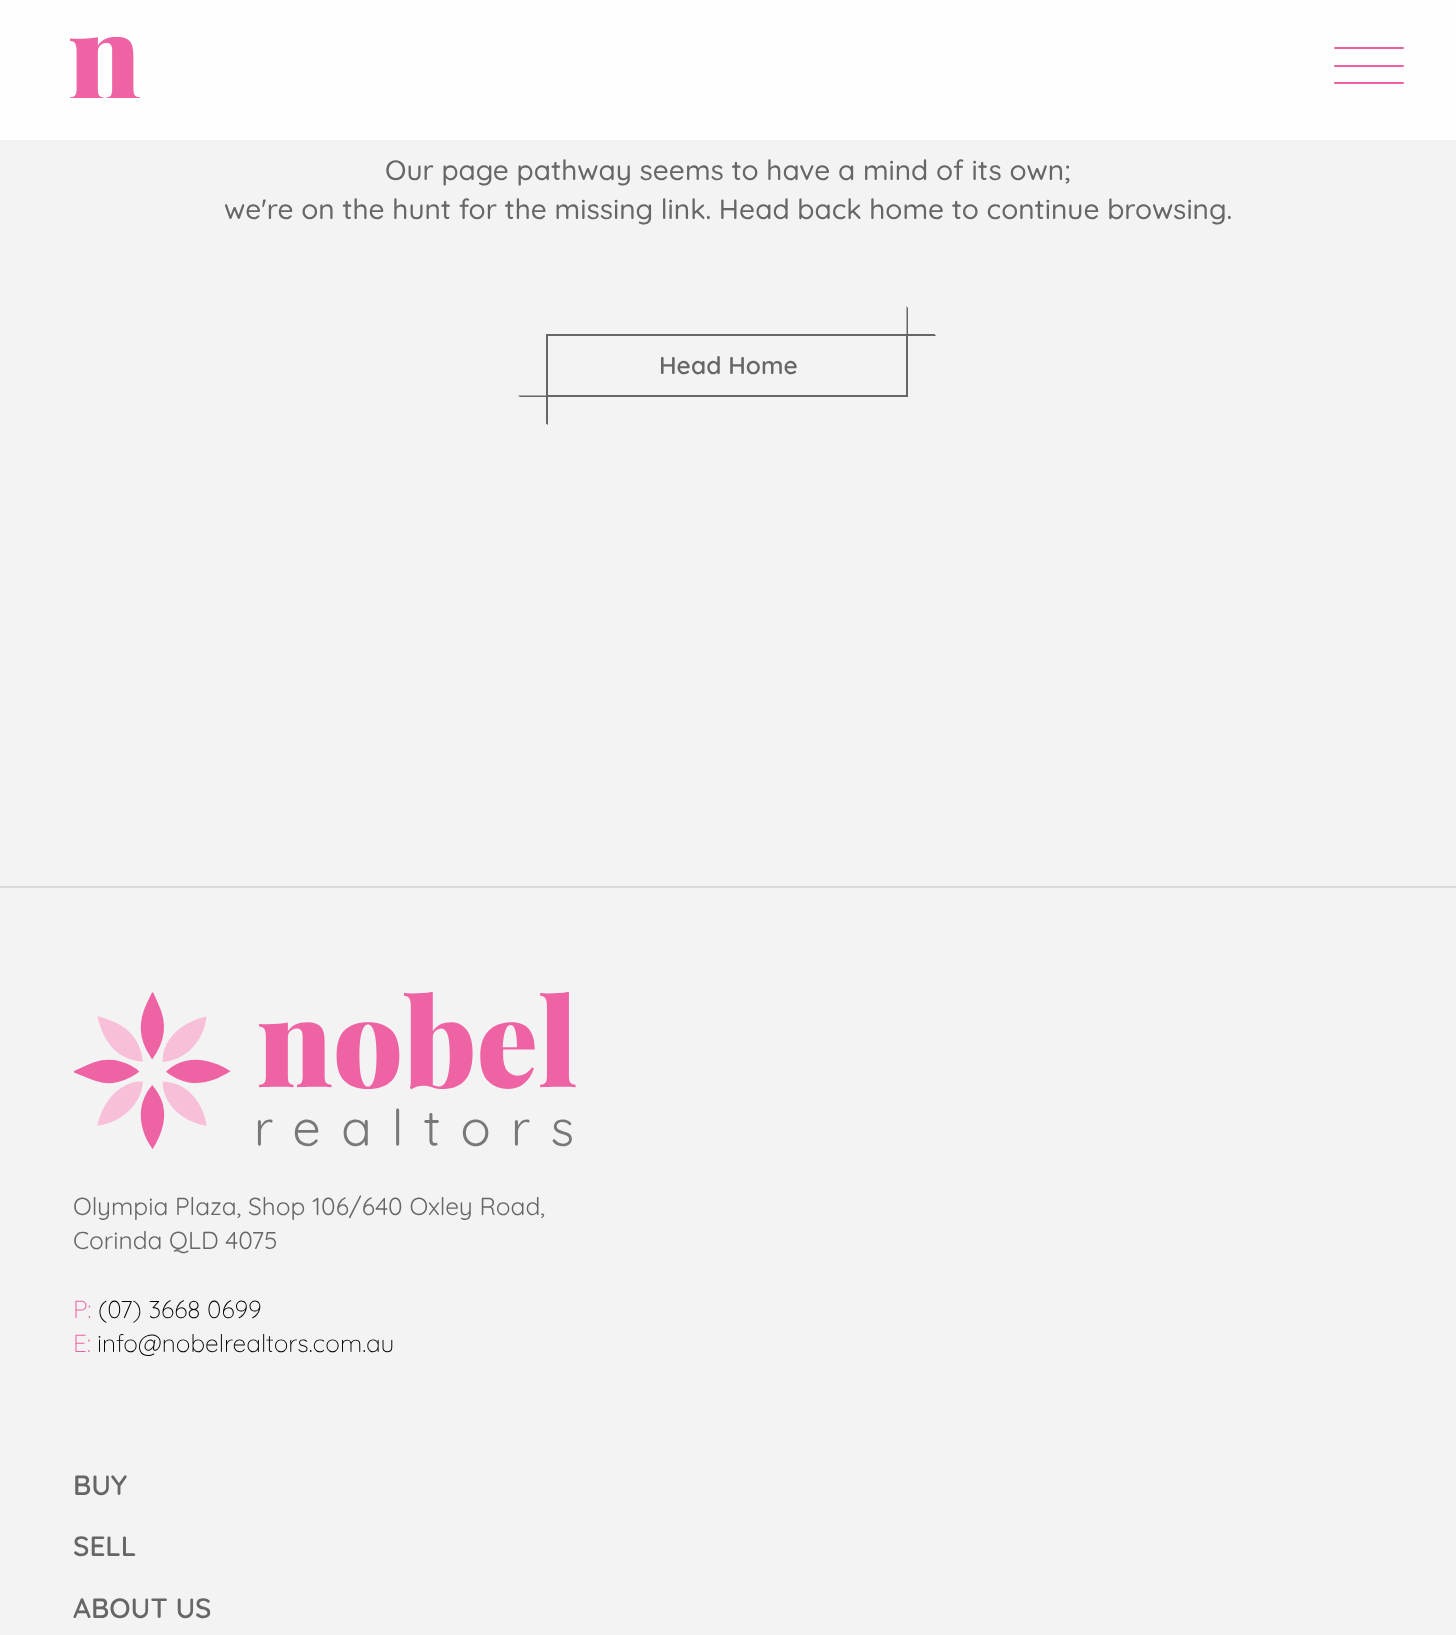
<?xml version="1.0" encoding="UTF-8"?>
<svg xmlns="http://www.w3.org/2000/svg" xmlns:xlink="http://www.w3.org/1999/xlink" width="1456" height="1635">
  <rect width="100%" height="100%" fill="#f3f3f3" />
  <rect width="1456" height="140" fill="#fefefe" />
  <image x="70" y="37" width="70" height="61" xlink:href="image1.png" />
  <rect x="1334" y="65" width="70" height="2" rx="1" fill="#ef60a3" />
  <rect x="1334" y="47" width="70" height="2" rx="1" fill="#ef60a3" />
  <rect x="1334" y="82" width="70" height="2" rx="1" fill="#ef60a3" />
  <rect x="547" y="335" width="360" height="61" fill="none" stroke="#666666" stroke-width="2" />
  <path d="M 936 336 h -29.5 l 1.5 -2 h 26.5 z" fill="#666666" />
  <path d="M 906.5 336 v -30 l 1.5 2 v 26 z" fill="#666666" />
  <path d="M 518 395.5 h 30 l -2 1.5 h -26 z" fill="#666666" />
  <path d="M 548 395.5 v 29.5 l -2 -1.5 v -26.5 z" fill="#666666" />
  <rect y="886" width="1456" height="2" fill="#dbdbdb" />
  <image x="74" y="992" width="502" height="157" xlink:href="image2.png" />
  <text x="385" y="180" style="font-family: Quicksand; font-size: 28px; font-weight: 500; fill: #666666">Our page pathway seems to have a mind of its own;</text>
  <text x="224" y="219" style="font-family: Quicksand; font-size: 28px; font-weight: 500; fill: #666666">we're on the hunt for the missing link. Head back home to continue browsing.</text>
  <text x="659" y="374" style="font-family: Quicksand; font-size: 24.5px; font-weight: 600; fill: #666666">Head Home</text>
  <text x="73" y="1215" style="font-family: Quicksand; font-size: 24.5px; fill: #666666">Olympia Plaza, Shop 106/640 Oxley Road,</text>
  <text x="73" y="1249" style="font-family: Quicksand; font-size: 24.5px; fill: #666666">Corinda QLD 4075</text>
  <text x="73" y="1318" style="font-family: Quicksand; font-size: 24.5px; font-weight: 300; fill: #ef60a3">P:</text>
  <text x="98" y="1318" style="font-family: Quicksand; font-size: 24.5px; font-weight: 300; fill: #000000">(07) 3668 0699</text>
  <text x="73" y="1352" style="font-family: Quicksand; font-size: 24.5px; font-weight: 300; fill: #ef60a3">E:</text>
  <text x="97" y="1352" style="font-family: Quicksand; font-size: 24.5px; font-weight: 300; fill: #000000">info@nobelrealtors.com.au</text>
  <text x="73" y="1495" style="font-family: Quicksand; font-size: 28px; font-weight: 600; fill: #666666">BUY</text>
  <text x="73" y="1556" style="font-family: Quicksand; font-size: 28px; font-weight: 600; fill: #666666">SELL</text>
  <text x="73" y="1618" style="font-family: Quicksand; font-size: 28px; font-weight: 600; fill: #666666">ABOUT US</text>
</svg>
